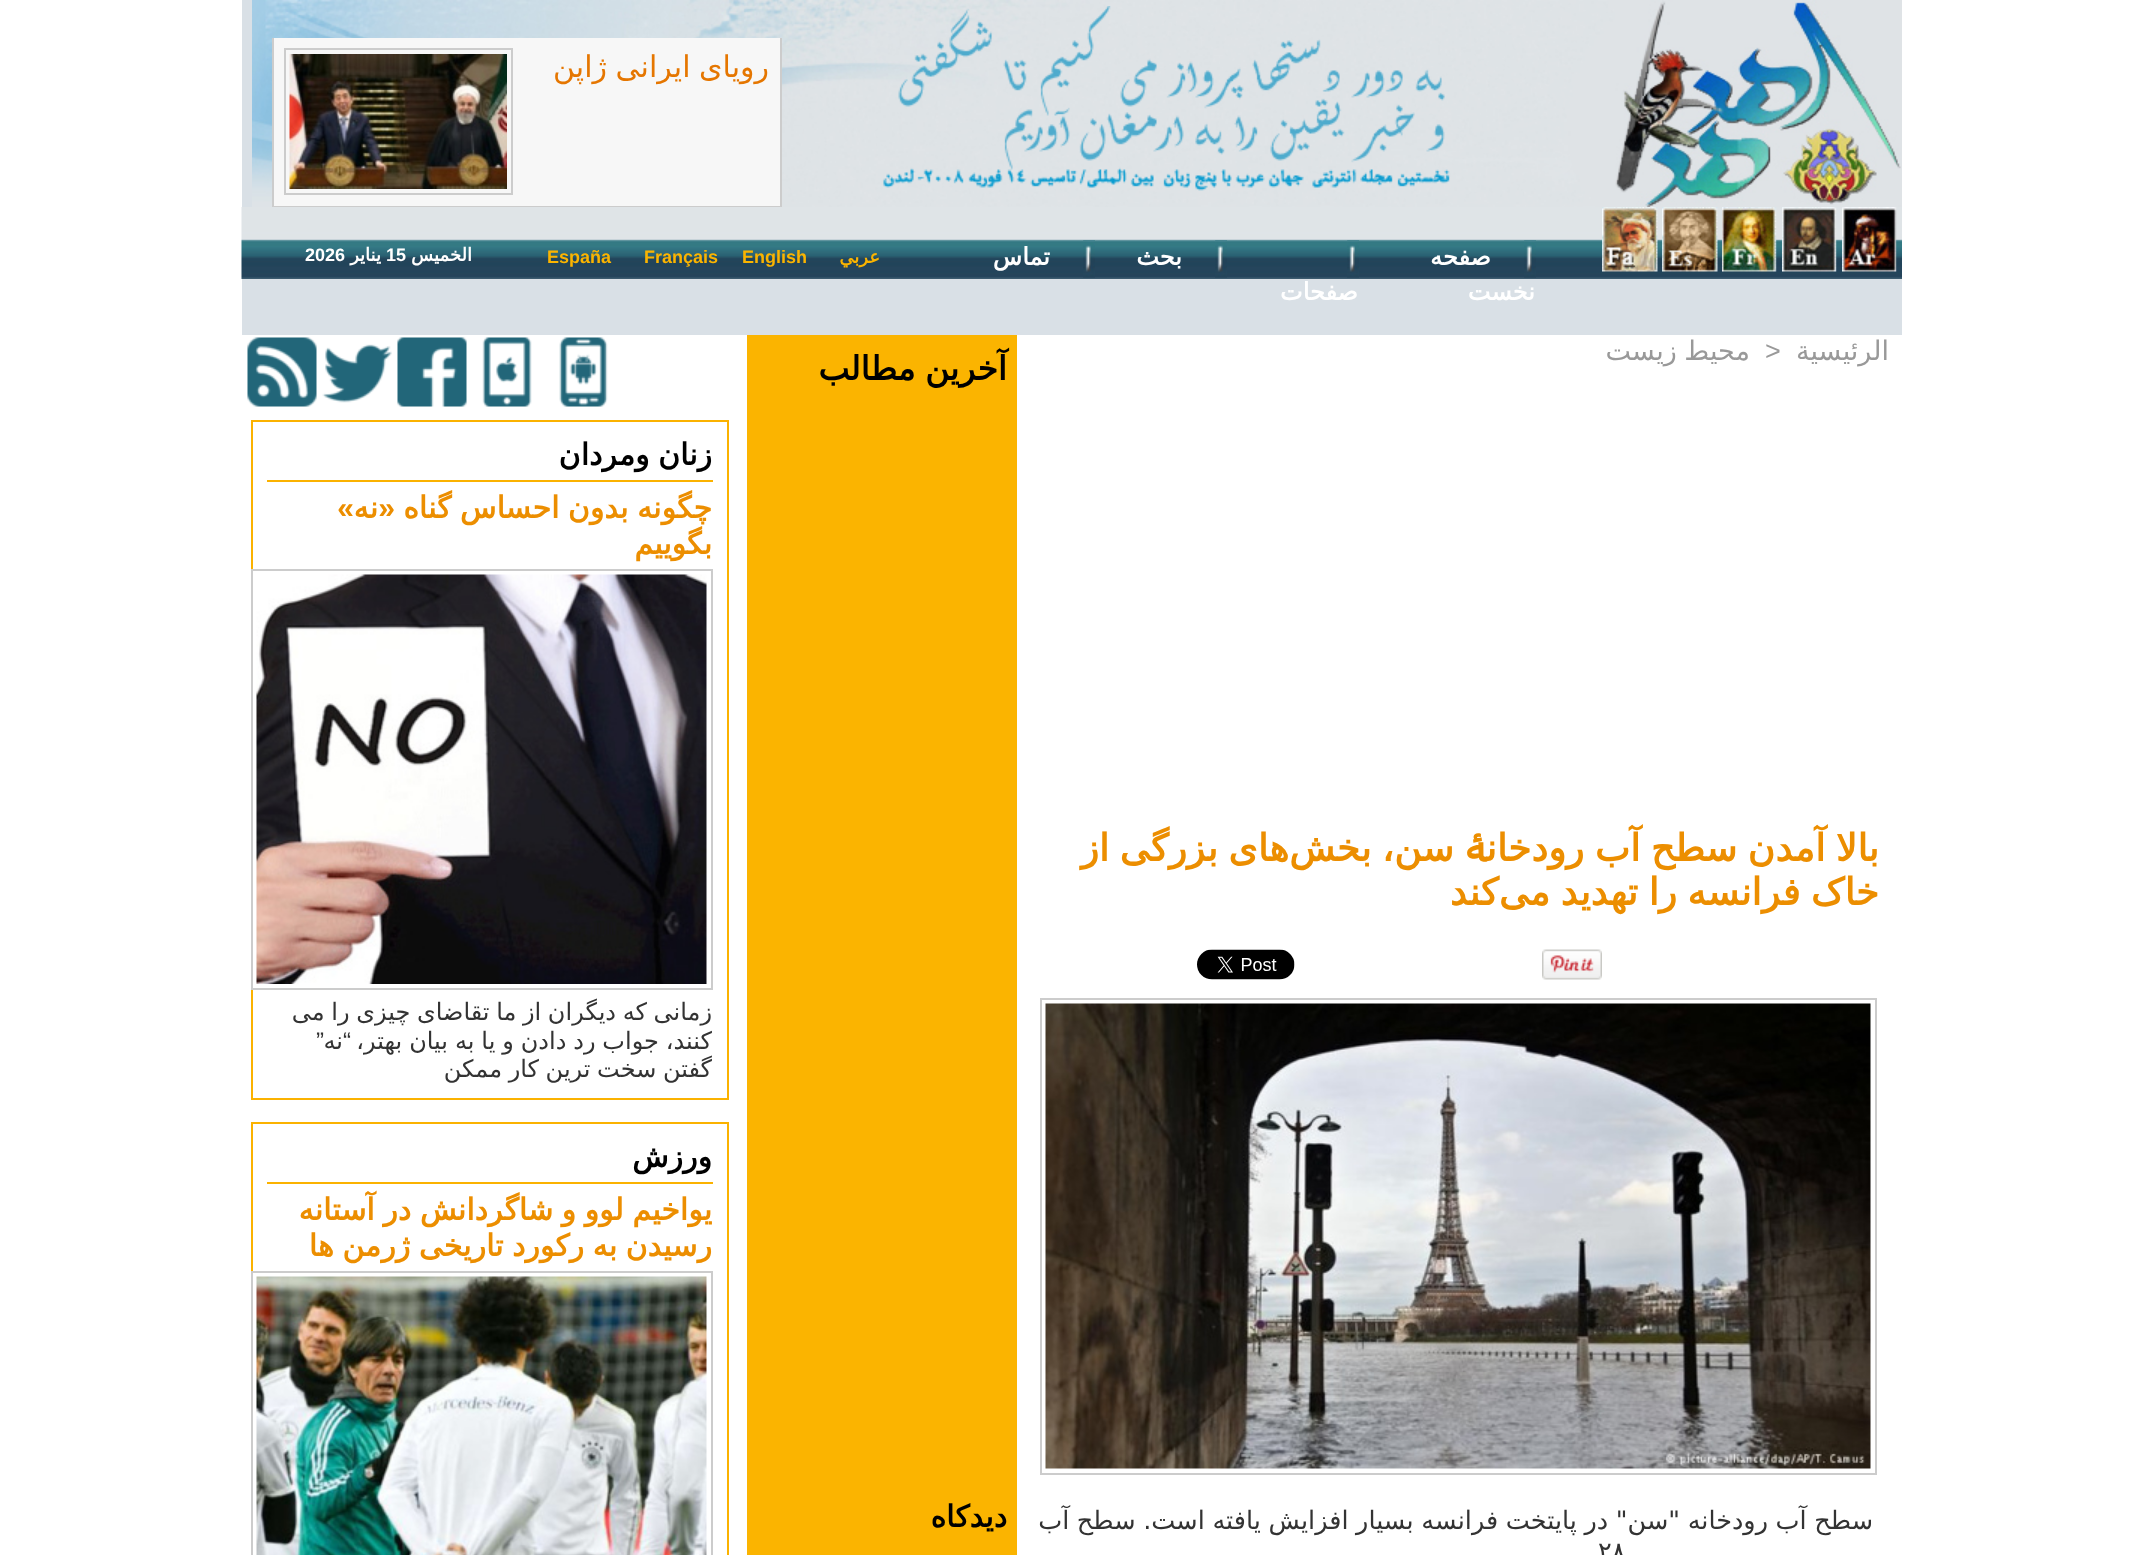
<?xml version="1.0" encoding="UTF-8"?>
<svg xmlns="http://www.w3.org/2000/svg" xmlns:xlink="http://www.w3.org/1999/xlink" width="2142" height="1555">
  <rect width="100%" height="100%" fill="#ffffff" />
  <rect x="242" width="1660" height="335" fill="#d9e0e6" />
  <image x="252" y="0" width="1363" height="207" xlink:href="image1.png" />
  <image x="1615" y="0" width="287" height="207" xlink:href="image2.png" />
  <image x="883" y="6" width="567" height="185" xlink:href="image3.png" />
  <rect x="272" y="206" width="510" height="1" fill="#cccccc" />
  <rect x="274" y="38" width="506" height="168" fill="#f7f7f7" />
  <rect x="780" y="38" width="2" height="168" fill="#cccccc" />
  <rect x="272" y="38" width="2" height="168" fill="#cccccc" />
  <rect x="285" y="49" width="227" height="145" fill="none" stroke="#cccccc" stroke-width="2" />
  <image x="289" y="54" width="218" height="135" xlink:href="image4.png" />
  <image x="241" y="207" width="1661" height="72" xlink:href="image5.png" />
  <image x="1842" y="207" width="55" height="65" xlink:href="image6.png" />
  <image x="1782" y="207" width="55" height="65" xlink:href="image7.png" />
  <image x="1722" y="207" width="55" height="65" xlink:href="image8.png" />
  <image x="1662" y="207" width="56" height="65" xlink:href="image9.png" />
  <image x="1602" y="207" width="56" height="65" xlink:href="image10.png" />
  <image x="1524" y="240" width="12" height="38" xlink:href="image11.png" />
  <image x="1215" y="240" width="12" height="38" xlink:href="image12.png" />
  <image x="1083" y="240" width="12" height="38" xlink:href="image13.png" />
  <image x="1347" y="240" width="12" height="38" xlink:href="image12.png" />
  <image x="1542" y="949" width="60" height="31" xlink:href="image14.png" />
  <image x="1197" y="949" width="98" height="31" xlink:href="image15.png" />
  <rect x="1041" y="999" width="835" height="475" fill="none" stroke="#cccccc" stroke-width="2" />
  <image x="1045" y="1003" width="826" height="466" xlink:href="image16.png" />
  <rect x="747" y="335" width="270" height="1220" fill="#fbb400" />
  <image x="559" y="337" width="49" height="70" xlink:href="image17.png" />
  <image x="482" y="337" width="50" height="70" xlink:href="image18.png" />
  <image x="397" y="337" width="70" height="70" xlink:href="image19.png" />
  <image x="322" y="344" width="70" height="59" xlink:href="image20.png" />
  <image x="247" y="337" width="70" height="70" xlink:href="image21.png" />
  <rect x="252" y="421" width="476" height="678" fill="none" stroke="#fbb200" stroke-width="2" />
  <rect x="267" y="480" width="446" height="2" fill="#fbb200" />
  <rect x="252" y="570" width="460" height="419" fill="none" stroke="#cccccc" stroke-width="2" />
  <image x="256" y="574" width="451" height="410" xlink:href="image22.png" />
  <rect x="252" y="1123" width="476" height="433" fill="none" stroke="#fbb200" stroke-width="2" />
  <rect x="267" y="1182" width="446" height="2" fill="#fbb200" />
  <rect x="252" y="1272" width="460" height="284" fill="none" stroke="#cccccc" stroke-width="2" />
  <image x="256" y="1276" width="451" height="279" xlink:href="image23.png" />
  <text x="769" y="77" word-spacing="-1" style="font-family: DejaVu Sans; font-size: 30px; direction: rtl; fill: #e57600">رویای ایرانی ژاپن</text>
  <text x="1491" y="265" style="font-family: DejaVu Sans; font-size: 24px; font-weight: bold; direction: rtl; fill: #ffffff">صفحه</text>
  <text x="1535" y="300" style="font-family: DejaVu Sans; font-size: 24px; font-weight: bold; direction: rtl; fill: #ffffff">نخست</text>
  <text x="1182" y="265" style="font-family: DejaVu Sans; font-size: 24px; font-weight: bold; direction: rtl; fill: #ffffff">بحث</text>
  <text x="1050" y="265" style="font-family: DejaVu Sans; font-size: 24px; font-weight: bold; direction: rtl; fill: #ffffff">تماس</text>
  <text x="1358" y="300" style="font-family: DejaVu Sans; font-size: 24px; font-weight: bold; direction: rtl; fill: #ffffff">صفحات</text>
  <text x="880" y="263" style="font-family: DejaVu Sans; font-size: 18px; font-weight: bold; direction: rtl; fill: #fbb400">عربي</text>
  <text x="742" y="263" style="font-family: Liberation Sans; font-size: 18px; font-weight: bold; fill: #fbb400">English</text>
  <text x="644" y="263" style="font-family: Liberation Sans; font-size: 18px; font-weight: bold; fill: #fbb400">Français</text>
  <text x="547" y="263" style="font-family: Liberation Sans; font-size: 18px; font-weight: bold; fill: #fbb400">España</text>
  <text x="472" y="261" style="font-family: DejaVu Sans; font-size: 18px; font-weight: bold; direction: rtl; fill: #ffffff">الخميس</text>
  <text x="386" y="261" style="font-family: Liberation Sans; font-size: 18px; font-weight: bold; fill: #ffffff">15</text>
  <text x="381" y="261" style="font-family: DejaVu Sans; font-size: 18px; font-weight: bold; direction: rtl; fill: #ffffff">يناير</text>
  <text x="305" y="261" style="font-family: Liberation Sans; font-size: 18px; font-weight: bold; fill: #ffffff">2026</text>
  <text x="1889" y="360" style="font-family: DejaVu Sans; font-size: 27px; direction: rtl; fill: #999999">الرئيسية</text>
  <text x="1765" y="360" style="font-family: Liberation Sans; font-size: 27px; fill: #999999">&gt;</text>
  <text x="1750" y="360" word-spacing="-1" style="font-family: DejaVu Sans; font-size: 27px; direction: rtl; fill: #999999">محيط زيست</text>
  <text x="1879" y="861" word-spacing="-1.5" style="font-family: DejaVu Sans; font-size: 37.5px; font-weight: bold; direction: rtl; fill: #ec8e00">بالا آمدن سطح آب رودخانۀ سن، بخش‌های بزرگی از</text>
  <text x="1879" y="905" word-spacing="-1.5" style="font-family: DejaVu Sans; font-size: 37.5px; font-weight: bold; direction: rtl; fill: #ec8e00">خاک فرانسه را تهدید می‌کند</text>
  <text x="1873" y="1529" word-spacing="-0.5" style="font-family: DejaVu Sans; font-size: 25.5px; direction: rtl; fill: #333333">سطح آب رودخانه "سن" در پایتخت فرانسه بسیار افزایش یافته است. سطح آب</text>
  <text x="1598" y="1560" style="font-family: DejaVu Sans; font-size: 25.5px; fill: #333333">۲۸</text>
  <text x="1007" y="380" word-spacing="-1" style="font-family: DejaVu Sans; font-size: 33px; font-weight: bold; direction: rtl; fill: #000000">آخرين مطالب</text>
  <text x="1007" y="1527" style="font-family: DejaVu Sans; font-size: 30px; font-weight: bold; direction: rtl; fill: #000000">ديدكاه</text>
  <text x="712" y="465" word-spacing="-1" style="font-family: DejaVu Sans; font-size: 30px; font-weight: bold; direction: rtl; fill: #000000">زنان ومردان</text>
  <text x="712" y="518" word-spacing="-1" style="font-family: DejaVu Sans; font-size: 30px; font-weight: bold; direction: rtl; fill: #ec8e00">چگونه بدون احساس گناه</text>
  <text x="395" y="518" style="font-family: Liberation Sans; font-size: 30px; font-weight: bold; direction: rtl; fill: #ec8e00">«</text>
  <text x="378" y="518" style="font-family: DejaVu Sans; font-size: 30px; font-weight: bold; direction: rtl; fill: #ec8e00">نه</text>
  <text x="354" y="518" style="font-family: Liberation Sans; font-size: 30px; font-weight: bold; direction: rtl; fill: #ec8e00">»</text>
  <text x="712" y="554" style="font-family: DejaVu Sans; font-size: 30px; font-weight: bold; direction: rtl; fill: #ec8e00">بگوییم</text>
  <text x="712" y="1020" word-spacing="-1" style="font-family: DejaVu Sans; font-size: 24px; direction: rtl; fill: #333333">زمانی که دیگران از ما تقاضای چیزی را می</text>
  <text x="712" y="1049" word-spacing="-0.75" style="font-family: DejaVu Sans; font-size: 24px; direction: rtl; fill: #333333">کنند، جواب رد دادن و یا به بیان بهتر،</text>
  <text x="351" y="1049" style="font-family: Liberation Sans; font-size: 24px; direction: rtl; fill: #333333">“</text>
  <text x="324" y="1049" style="font-family: Liberation Sans; font-size: 24px; direction: rtl; fill: #333333">”</text>
  <text x="343" y="1049" style="font-family: DejaVu Sans; font-size: 24px; direction: rtl; fill: #333333">نه</text>
  <text x="712" y="1077" word-spacing="-1" style="font-family: DejaVu Sans; font-size: 24px; direction: rtl; fill: #333333">گفتن سخت ترین کار ممکن</text>
  <text x="712" y="1167" style="font-family: DejaVu Sans; font-size: 30px; font-weight: bold; direction: rtl; fill: #000000">ورزش</text>
  <text x="712" y="1220" word-spacing="-1" style="font-family: DejaVu Sans; font-size: 30px; font-weight: bold; direction: rtl; fill: #ec8e00">یواخیم لوو و شاگردانش در آستانه</text>
  <text x="712" y="1256" word-spacing="-1" style="font-family: DejaVu Sans; font-size: 30px; font-weight: bold; direction: rtl; fill: #ec8e00">رسیدن به رکورد تاریخی ژرمن ها</text>
</svg>
